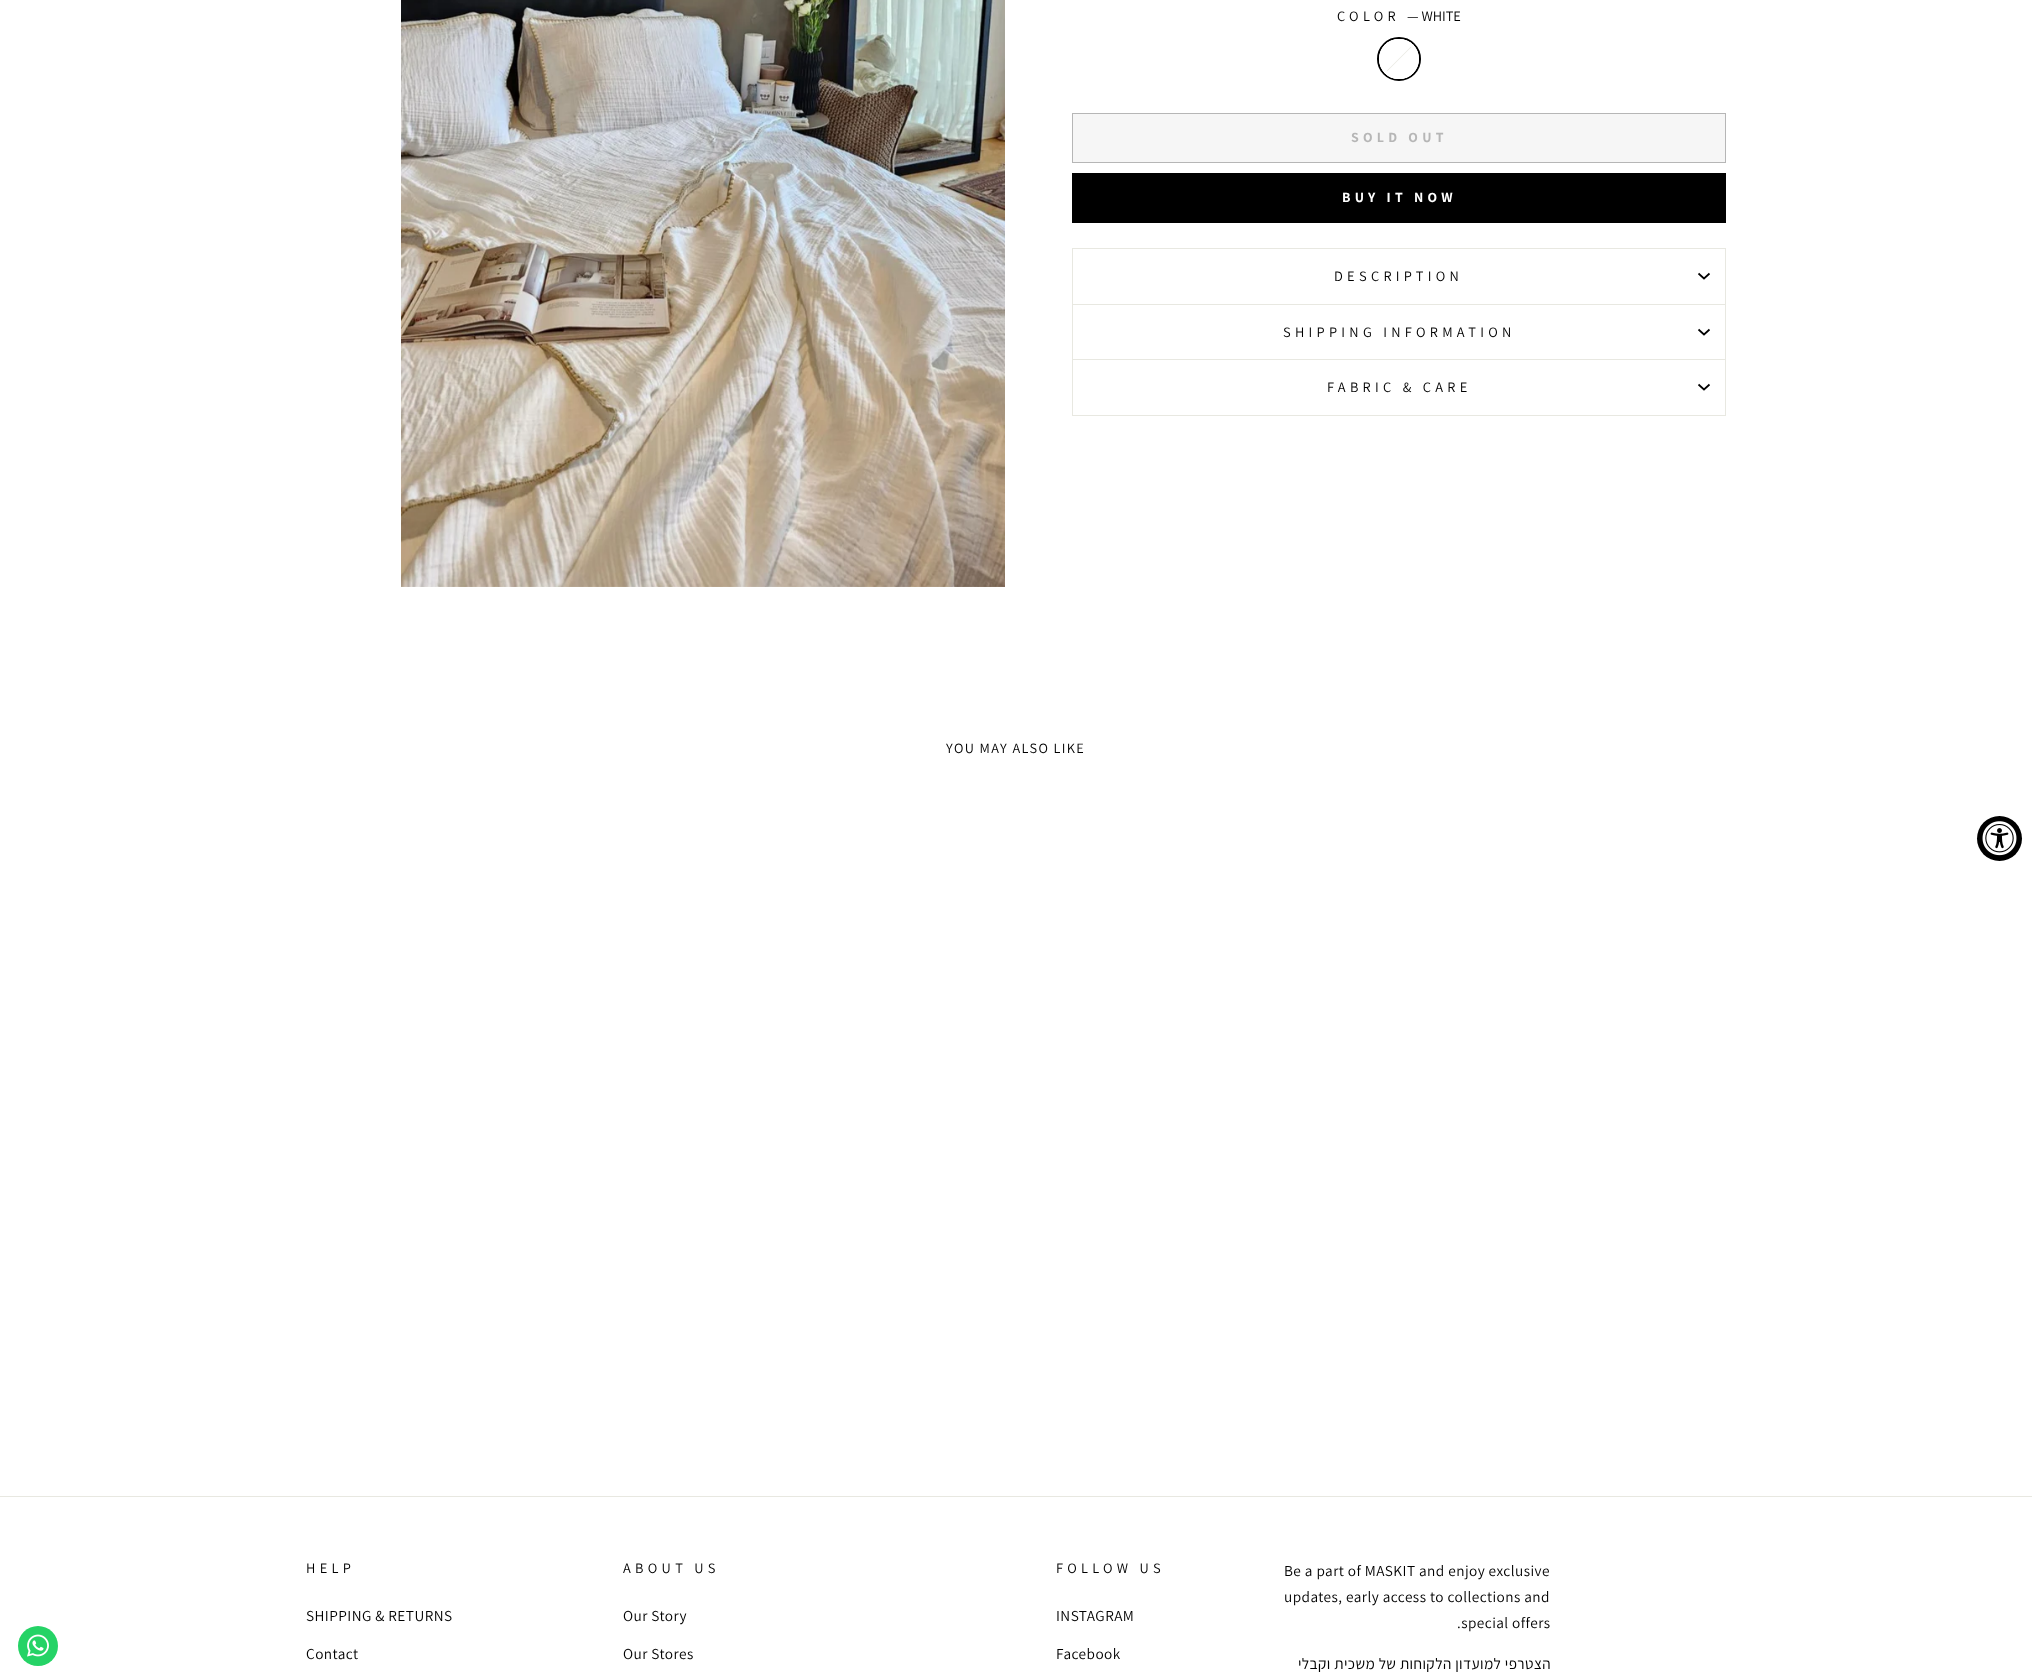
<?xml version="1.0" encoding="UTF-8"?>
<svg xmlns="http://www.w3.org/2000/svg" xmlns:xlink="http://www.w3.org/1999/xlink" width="2032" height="1676">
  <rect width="100%" height="100%" fill="#ffffff" />
  <image x="401" y="0" width="604" height="587" xlink:href="image1.png" />
  <circle cx="1399" cy="59" r="21" fill="none" stroke="#000000" stroke-width="2" />
  <circle cx="1399" cy="59" r="20" fill="#ffffff" />
  <path d="M 1413 44.5 l 0.5 0.5 l -28 28 l -0.5 -0.5 z" fill="#e8e8e1" />
  <path d="M 1399 39 c -26 0 -26 40 0 40 c 26 0 26 -40 0 -40 z m 0 3 c -22 0 -22 34 0 34 c 22 0 22 -34 0 -34 z" fill="#ffffff" fill-rule="evenodd" />
  <rect x="1072.5" y="113.5" width="653" height="49" fill="#f6f6f6" stroke="#b6b6b6" />
  <rect x="1072" y="173" width="654" height="50" fill="#000000" />
  <rect x="1072" y="304" width="654" height="1" fill="#e8e8e1" />
  <rect x="1072" y="248" width="654" height="1" fill="#e8e8e1" />
  <rect x="1725" y="248" width="1" height="56" fill="#e8e8e1" />
  <rect x="1072" y="248" width="1" height="56" fill="#e8e8e1" />
  <path d="M 1698.5 273.5 l 5.5 5 l 5.5 -5" fill="none" stroke="#000000" stroke-width="1.7" />
  <rect x="1072" y="359" width="654" height="1" fill="#e8e8e1" />
  <rect x="1725" y="305" width="1" height="54" fill="#e8e8e1" />
  <rect x="1072" y="305" width="1" height="54" fill="#e8e8e1" />
  <path d="M 1698.5 329.5 l 5.5 5 l 5.5 -5" fill="none" stroke="#000000" stroke-width="1.7" />
  <rect x="1072" y="415" width="654" height="1" fill="#e8e8e1" />
  <rect x="1725" y="360" width="1" height="55" fill="#e8e8e1" />
  <rect x="1072" y="360" width="1" height="55" fill="#e8e8e1" />
  <path d="M 1698.5 384.5 l 5.5 5 l 5.5 -5" fill="none" stroke="#000000" stroke-width="1.7" />
  <rect y="1496" width="2032" height="1" fill="#e8e8e1" />
  <circle cx="1999.5" cy="838.5" r="22.5" fill="#000000" />
  <image x="1982" y="821" width="35" height="35" xlink:href="image2.png" />
  <circle cx="38" cy="1646" r="20" fill="#25d366" />
  <image x="27" y="1634" width="22" height="23" xlink:href="image3.png" />
  <text x="1337" y="21" style="font-family: Assistant; font-size: 14.4px; letter-spacing: 4.3px; fill: #000000">COLOR</text>
  <text x="1407" y="21" style="font-family: Assistant; font-size: 14.4px; fill: #000000">— WHITE</text>
  <text x="1351" y="142" style="font-family: Assistant; font-size: 14px; font-weight: bold; letter-spacing: 4.25px; fill: #b6b6b6">SOLD OUT</text>
  <text x="1342" y="202" style="font-family: Assistant; font-size: 14px; font-weight: bold; letter-spacing: 4.25px; fill: #ffffff">BUY IT NOW</text>
  <text x="1334" y="281" style="font-family: Assistant; font-size: 14.4px; letter-spacing: 4.3px; fill: #000000">DESCRIPTION</text>
  <text x="1283" y="337" style="font-family: Assistant; font-size: 14.4px; letter-spacing: 4.3px; fill: #000000">SHIPPING INFORMATION</text>
  <text x="1327" y="392" style="font-family: Assistant; font-size: 14.4px; letter-spacing: 4.3px; fill: #000000">FABRIC &amp; CARE</text>
  <text x="946" y="753" style="font-family: Assistant; font-size: 14.25px; letter-spacing: 1.4px; fill: #000000">YOU MAY ALSO LIKE</text>
  <text x="306" y="1573" style="font-family: Assistant; font-size: 14.4px; letter-spacing: 4.3px; fill: #000000">HELP</text>
  <text x="306" y="1621" style="font-family: Assistant; font-size: 15.25px; letter-spacing: 0.45px; fill: #000000">SHIPPING &amp; RETURNS</text>
  <text x="306" y="1659" style="font-family: Assistant; font-size: 15.25px; letter-spacing: 0.45px; fill: #000000">Contact</text>
  <text x="623" y="1573" style="font-family: Assistant; font-size: 14.4px; letter-spacing: 4.3px; fill: #000000">ABOUT US</text>
  <text x="623" y="1621" style="font-family: Assistant; font-size: 15.25px; letter-spacing: 0.45px; fill: #000000">Our Story</text>
  <text x="623" y="1659" style="font-family: Assistant; font-size: 15.25px; letter-spacing: 0.45px; fill: #000000">Our Stores</text>
  <text x="1056" y="1573" style="font-family: Assistant; font-size: 14.4px; letter-spacing: 4.3px; fill: #000000">FOLLOW US</text>
  <text x="1056" y="1621" style="font-family: Assistant; font-size: 15.25px; letter-spacing: 0.45px; fill: #000000">INSTAGRAM</text>
  <text x="1056" y="1659" style="font-family: Assistant; font-size: 15.25px; letter-spacing: 0.45px; fill: #000000">Facebook</text>
  <text x="1284" y="1576" style="font-family: Assistant; font-size: 15.25px; letter-spacing: 0.45px; fill: #000000">Be a part of MASKIT and enjoy exclusive</text>
  <text x="1284" y="1602" style="font-family: Assistant; font-size: 15.25px; letter-spacing: 0.45px; fill: #000000">updates, early access to collections and</text>
  <text x="1457" y="1628" style="font-family: Assistant; font-size: 15.25px; letter-spacing: 0.45px; fill: #000000">.special offers</text>
  <text x="1551" y="1669" style="font-family: Assistant; font-size: 15.25px; letter-spacing: 0.45px; direction: rtl; fill: #000000">הצטרפי למועדון הלקוחות של משכית וקבלי</text>
</svg>
